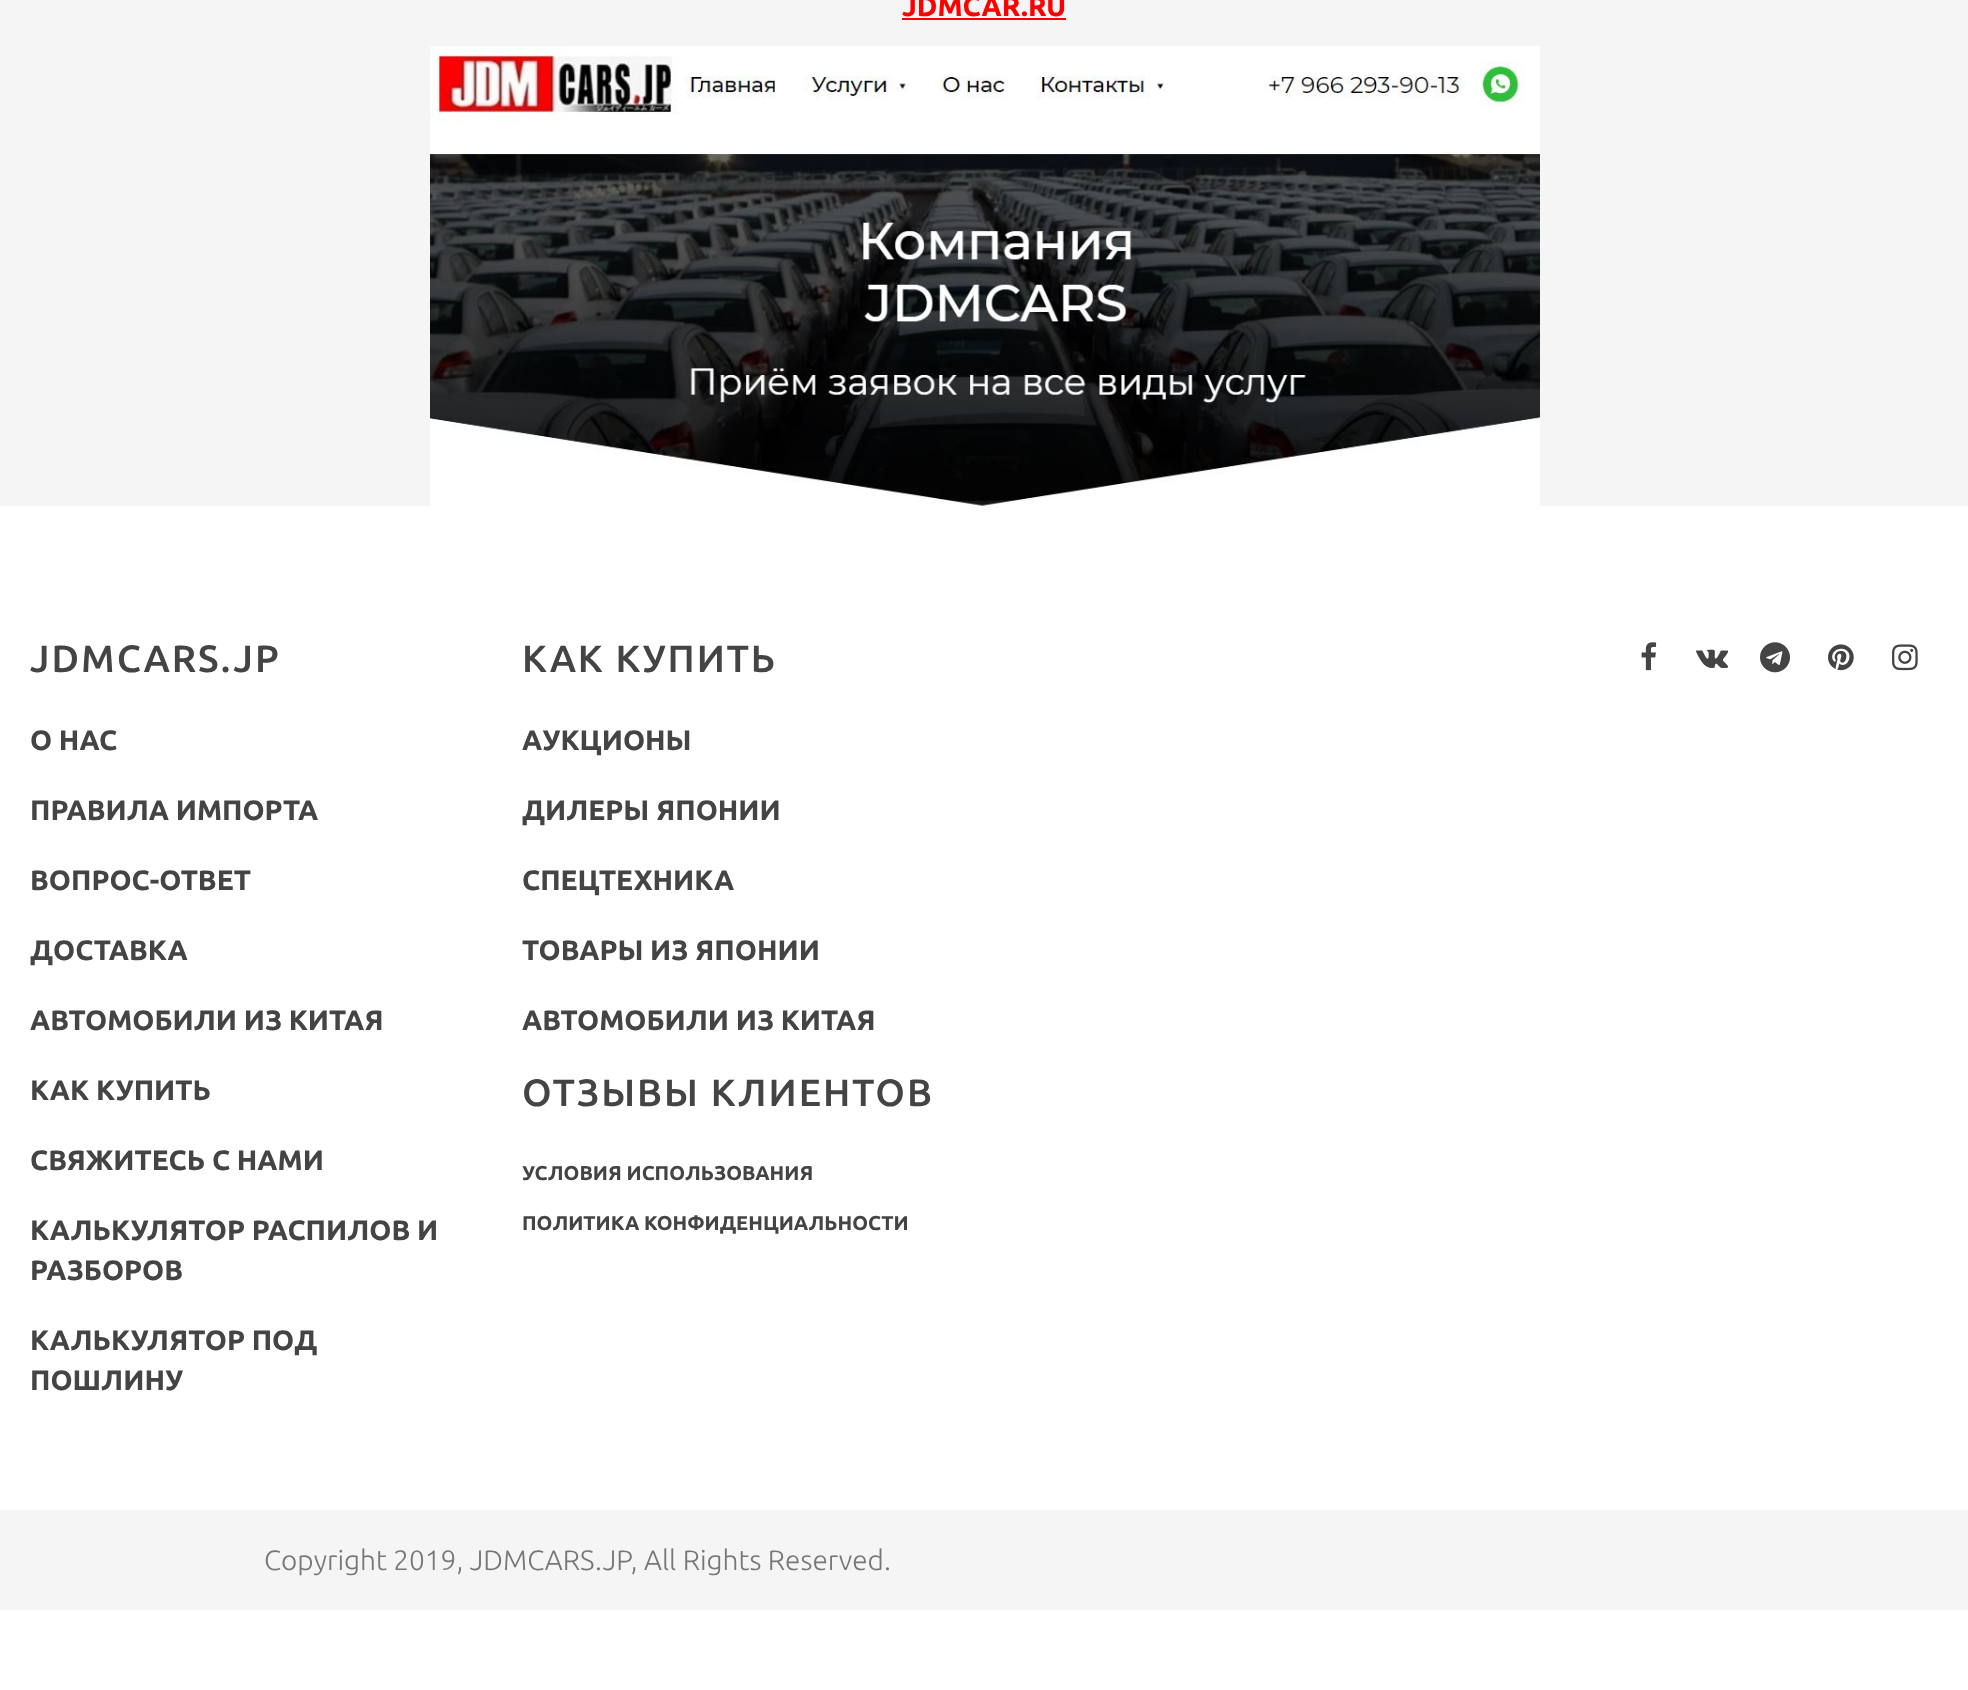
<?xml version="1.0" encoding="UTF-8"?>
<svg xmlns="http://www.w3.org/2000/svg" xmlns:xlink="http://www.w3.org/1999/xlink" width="1968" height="1690">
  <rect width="100%" height="100%" fill="#ffffff" />
  <rect width="1968" height="506" fill="#f5f5f5" />
  <rect x="902" y="18" width="164" height="2" fill="#ff0000" />
  <image x="430" y="46" width="1110" height="464" xlink:href="image1.png" />
  <image x="1641" y="642" width="16" height="29" xlink:href="image2.png" />
  <image x="1696" y="649" width="33" height="19" xlink:href="image3.png" />
  <image x="1760" y="642" width="30" height="31" xlink:href="image4.png" />
  <image x="1828" y="644" width="26" height="27" xlink:href="image5.png" />
  <image x="1892" y="644" width="26" height="27" xlink:href="image6.png" />
  <rect y="1510" width="1968" height="100" fill="#f5f5f5" />
  <text x="902" y="16" style="font-family: Ubuntu; font-size: 28px; font-weight: bold; fill: #ff0000">JDMCAR.RU</text>
  <text x="30" y="672" style="font-family: Ubuntu; font-size: 38px; font-weight: 500; letter-spacing: 2px; fill: #444444">JDMCARS.JP</text>
  <text x="30" y="750" style="font-family: Ubuntu; font-size: 28px; font-weight: bold; fill: #444444">О НАС</text>
  <text x="30" y="820" style="font-family: Ubuntu; font-size: 28px; font-weight: bold; fill: #444444">ПРАВИЛА ИМПОРТА</text>
  <text x="30" y="890" style="font-family: Ubuntu; font-size: 28px; font-weight: bold; fill: #444444">ВОПРОС-ОТВЕТ</text>
  <text x="30" y="960" style="font-family: Ubuntu; font-size: 28px; font-weight: bold; fill: #444444">ДОСТАВКА</text>
  <text x="30" y="1030" style="font-family: Ubuntu; font-size: 28px; font-weight: bold; fill: #444444">АВТОМОБИЛИ ИЗ КИТАЯ</text>
  <text x="30" y="1100" style="font-family: Ubuntu; font-size: 28px; font-weight: bold; fill: #444444">КАК КУПИТЬ</text>
  <text x="30" y="1170" style="font-family: Ubuntu; font-size: 28px; font-weight: bold; fill: #444444">СВЯЖИТЕСЬ С НАМИ</text>
  <text x="30" y="1240" style="font-family: Ubuntu; font-size: 28px; font-weight: bold; fill: #444444">КАЛЬКУЛЯТОР РАСПИЛОВ И</text>
  <text x="30" y="1280" style="font-family: Ubuntu; font-size: 28px; font-weight: bold; fill: #444444">РАЗБОРОВ</text>
  <text x="30" y="1350" style="font-family: Ubuntu; font-size: 28px; font-weight: bold; fill: #444444">КАЛЬКУЛЯТОР ПОД</text>
  <text x="30" y="1390" style="font-family: Ubuntu; font-size: 28px; font-weight: bold; fill: #444444">ПОШЛИНУ</text>
  <text x="264" y="1570" style="font-family: Ubuntu; font-size: 28px; font-weight: 300; fill: #777777">Copyright 2019, JDMCARS.JP, All Rights Reserved.</text>
  <text x="522" y="672" style="font-family: Ubuntu; font-size: 38px; font-weight: 500; letter-spacing: 2px; fill: #444444">КАК КУПИТЬ</text>
  <text x="522" y="750" style="font-family: Ubuntu; font-size: 28px; font-weight: bold; fill: #444444">АУКЦИОНЫ</text>
  <text x="522" y="820" style="font-family: Ubuntu; font-size: 28px; font-weight: bold; fill: #444444">ДИЛЕРЫ ЯПОНИИ</text>
  <text x="522" y="890" style="font-family: Ubuntu; font-size: 28px; font-weight: bold; fill: #444444">СПЕЦТЕХНИКА</text>
  <text x="522" y="960" style="font-family: Ubuntu; font-size: 28px; font-weight: bold; fill: #444444">ТОВАРЫ ИЗ ЯПОНИИ</text>
  <text x="522" y="1030" style="font-family: Ubuntu; font-size: 28px; font-weight: bold; fill: #444444">АВТОМОБИЛИ ИЗ КИТАЯ</text>
  <text x="522" y="1106" style="font-family: Ubuntu; font-size: 38px; font-weight: 500; letter-spacing: 2px; fill: #444444">ОТЗЫВЫ КЛИЕНТОВ</text>
  <text x="522" y="1180" style="font-family: Ubuntu; font-size: 20px; font-weight: bold; fill: #444444">УСЛОВИЯ ИСПОЛЬЗОВАНИЯ</text>
  <text x="522" y="1230" style="font-family: Ubuntu; font-size: 20px; font-weight: bold; fill: #444444">ПОЛИТИКА КОНФИДЕНЦИАЛЬНОСТИ</text>
</svg>
